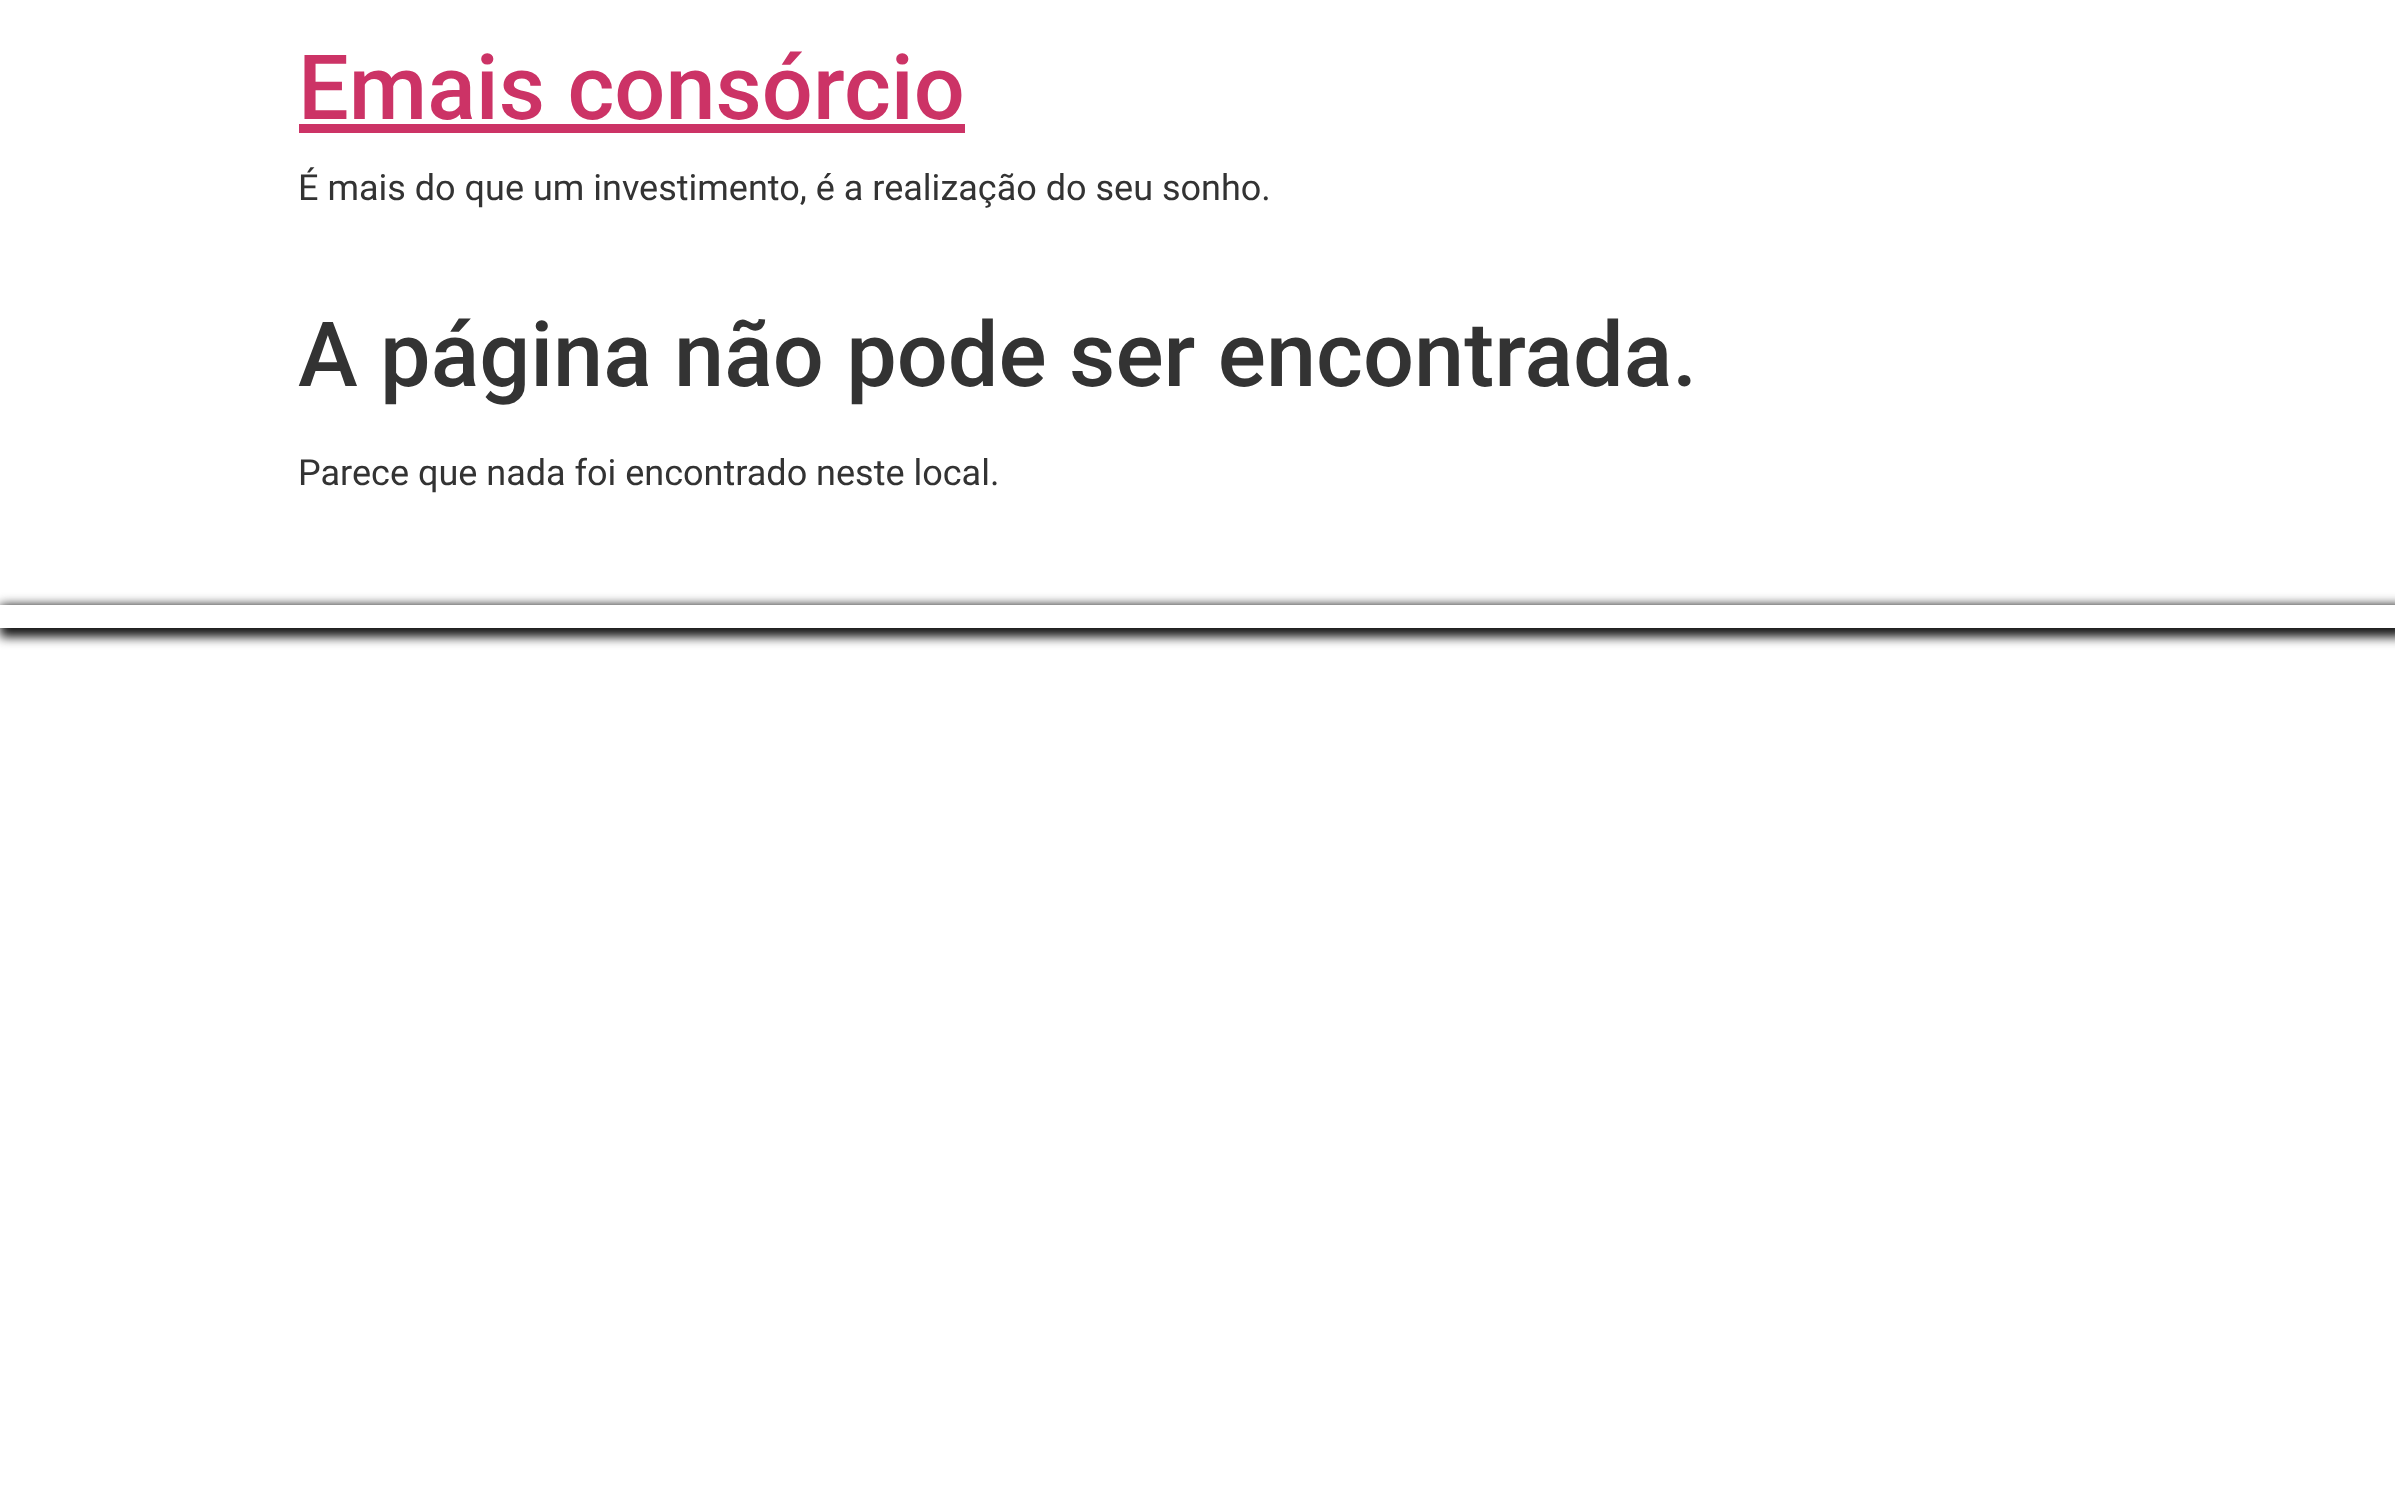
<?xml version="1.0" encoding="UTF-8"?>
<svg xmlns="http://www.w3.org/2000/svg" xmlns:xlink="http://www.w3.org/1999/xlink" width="2395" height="1501">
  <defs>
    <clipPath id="clip1"><path d="M 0 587 h 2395 v 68 h -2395 z m 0 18 h 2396 v 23 h -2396 z" clip-rule="evenodd" /></clipPath>
  </defs>
  <rect width="100%" height="100%" fill="#ffffff" />
  <rect x="299" y="124" width="666" height="9" fill="#cc3366" />
  <g clip-path="url(#clip1)">
    <rect y="605" width="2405" height="32" fill="#161616" filter="blur(5.5px)" />
  </g>
  <text x="298" y="119" style="font-family: Roboto; font-size: 90px; font-weight: 500; fill: #cc3366">Emais consórcio</text>
  <text x="298" y="200" style="font-family: Roboto; font-size: 36px; fill: #333333">É mais do que um investimento, é a realização do seu sonho.</text>
  <text x="298" y="386" style="font-family: Roboto; font-size: 90px; font-weight: 500; fill: #333333">A página não pode ser encontrada.</text>
  <text x="298" y="485" style="font-family: Roboto; font-size: 36px; fill: #333333">Parece que nada foi encontrado neste local.</text>
</svg>
